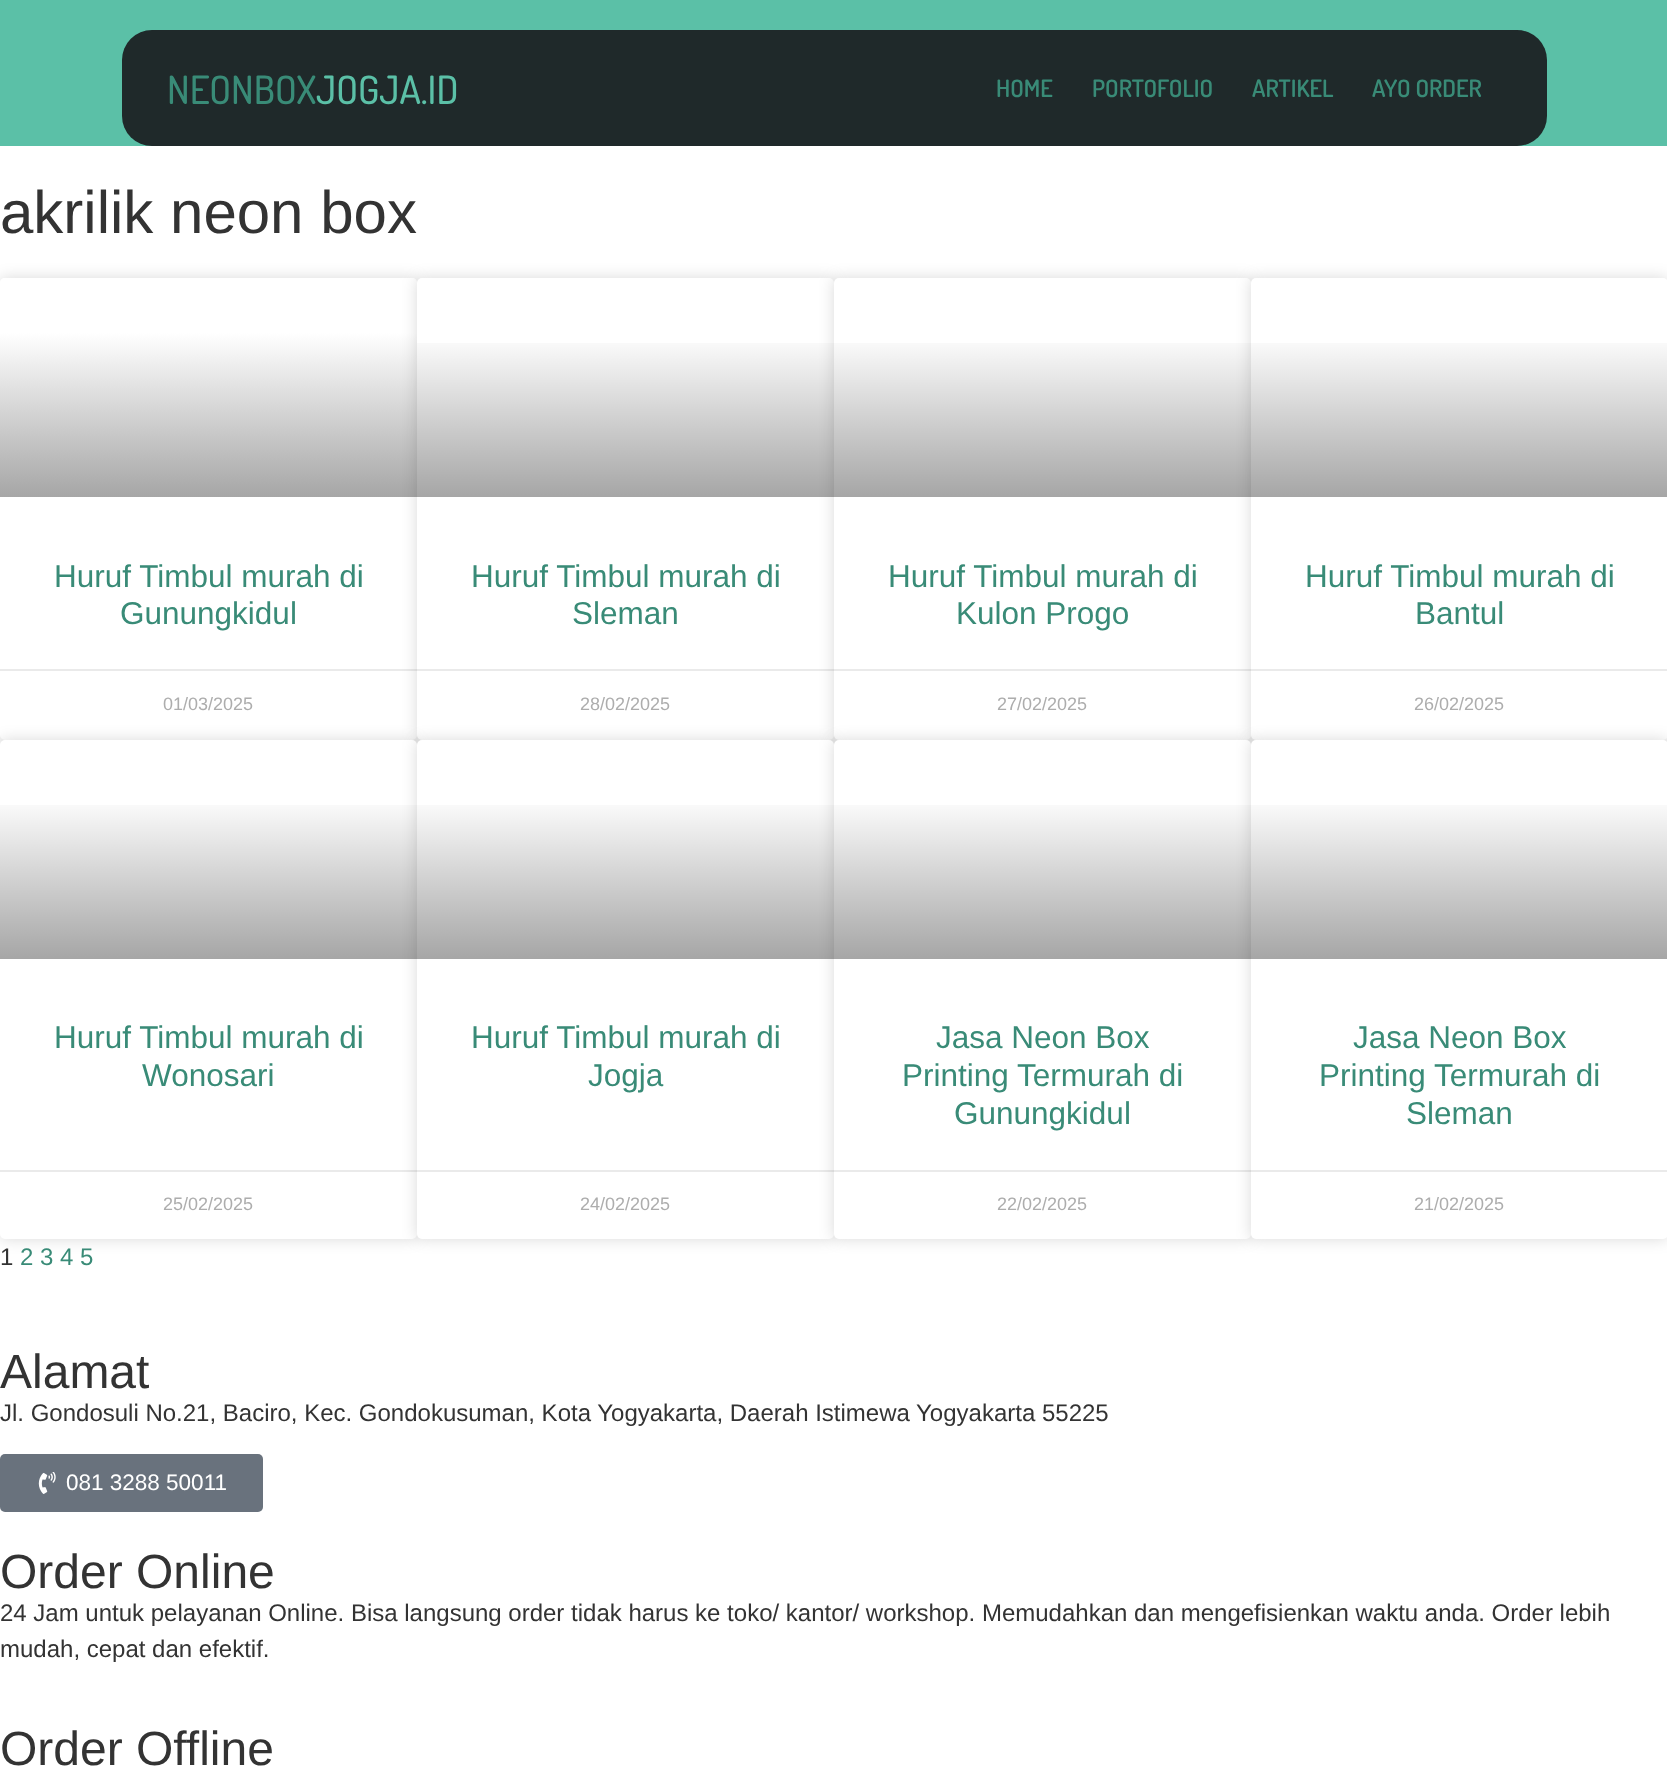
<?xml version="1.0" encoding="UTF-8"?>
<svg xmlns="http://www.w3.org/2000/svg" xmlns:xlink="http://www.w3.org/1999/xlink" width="1667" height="1787">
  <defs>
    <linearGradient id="g1" gradientUnits="userSpaceOnUse" x1="209" y1="497" x2="209" y2="278"><stop offset="0" stop-color="#a6a6a6" /><stop offset="0.75" stop-color="#ffffff" /></linearGradient>
    <linearGradient id="g2" gradientUnits="userSpaceOnUse" x1="626" y1="497" x2="626" y2="278"><stop offset="0" stop-color="#000000" stop-opacity="0.35" /><stop offset="0.75" stop-color="#000000" stop-opacity="0" /></linearGradient>
    <linearGradient id="g3" gradientUnits="userSpaceOnUse" x1="1043" y1="497" x2="1043" y2="278"><stop offset="0" stop-color="#000000" stop-opacity="0.35" /><stop offset="0.75" stop-color="#000000" stop-opacity="0" /></linearGradient>
    <linearGradient id="g4" gradientUnits="userSpaceOnUse" x1="1460" y1="497" x2="1460" y2="278"><stop offset="0" stop-color="#000000" stop-opacity="0.35" /><stop offset="0.75" stop-color="#000000" stop-opacity="0" /></linearGradient>
    <linearGradient id="g5" gradientUnits="userSpaceOnUse" x1="209" y1="959" x2="209" y2="740"><stop offset="0" stop-color="#000000" stop-opacity="0.35" /><stop offset="0.75" stop-color="#000000" stop-opacity="0" /></linearGradient>
    <linearGradient id="g6" gradientUnits="userSpaceOnUse" x1="626" y1="959" x2="626" y2="740"><stop offset="0" stop-color="#000000" stop-opacity="0.35" /><stop offset="0.75" stop-color="#000000" stop-opacity="0" /></linearGradient>
    <linearGradient id="g7" gradientUnits="userSpaceOnUse" x1="1043" y1="959" x2="1043" y2="740"><stop offset="0" stop-color="#000000" stop-opacity="0.35" /><stop offset="0.75" stop-color="#000000" stop-opacity="0" /></linearGradient>
    <linearGradient id="g8" gradientUnits="userSpaceOnUse" x1="1460" y1="959" x2="1460" y2="740"><stop offset="0" stop-color="#000000" stop-opacity="0.35" /><stop offset="0.75" stop-color="#000000" stop-opacity="0" /></linearGradient>
  </defs>
  <rect width="100%" height="100%" fill="#ffffff" />
  <rect width="1667" height="146" fill="#5bc0a7" />
  <rect x="122" y="30" width="1425" height="116" rx="30" fill="#1f292a" />
  <rect y="278" width="417" height="462" rx="5" fill="#000000" fill-opacity="0.15" filter="blur(7.5px)" />
  <rect y="278" width="417" height="462" rx="5" fill="#ffffff" />
  <path d="M 5 278 h 407 c 3 0 5 2 5 5 v 214 h -417 v -214 c 0 -3 2 -5 5 -5 z" fill="url(#g1)" />
  <rect y="669" width="417" height="2" fill="#eaeaea" />
  <rect x="417" y="278" width="417" height="462" rx="5" fill="#000000" fill-opacity="0.15" filter="blur(7.5px)" />
  <rect x="417" y="278" width="417" height="462" rx="5" fill="#ffffff" />
  <rect x="417" y="343" width="417" height="154" fill="url(#g2)" />
  <rect x="417" y="669" width="417" height="2" fill="#eaeaea" />
  <rect x="834" y="278" width="417" height="462" rx="5" fill="#000000" fill-opacity="0.15" filter="blur(7.5px)" />
  <rect x="834" y="278" width="417" height="462" rx="5" fill="#ffffff" />
  <rect x="834" y="343" width="417" height="154" fill="url(#g3)" />
  <rect x="834" y="669" width="417" height="2" fill="#eaeaea" />
  <rect x="1251" y="278" width="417" height="462" rx="5" fill="#000000" fill-opacity="0.15" filter="blur(7.5px)" />
  <rect x="1251" y="278" width="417" height="462" rx="5" fill="#ffffff" />
  <rect x="1251" y="343" width="416" height="154" fill="url(#g4)" />
  <rect x="1251" y="669" width="416" height="2" fill="#eaeaea" />
  <rect y="740" width="417" height="499" rx="5" fill="#000000" fill-opacity="0.15" filter="blur(7.5px)" />
  <rect y="740" width="417" height="499" rx="5" fill="#ffffff" />
  <rect y="805" width="417" height="154" fill="url(#g5)" />
  <rect y="1170" width="417" height="2" fill="#eaeaea" />
  <rect x="417" y="740" width="417" height="499" rx="5" fill="#000000" fill-opacity="0.15" filter="blur(7.5px)" />
  <rect x="417" y="740" width="417" height="499" rx="5" fill="#ffffff" />
  <rect x="417" y="805" width="417" height="154" fill="url(#g6)" />
  <rect x="417" y="1170" width="417" height="2" fill="#eaeaea" />
  <rect x="834" y="740" width="417" height="499" rx="5" fill="#000000" fill-opacity="0.15" filter="blur(7.5px)" />
  <rect x="834" y="740" width="417" height="499" rx="5" fill="#ffffff" />
  <rect x="834" y="805" width="417" height="154" fill="url(#g7)" />
  <rect x="834" y="1170" width="417" height="2" fill="#eaeaea" />
  <rect x="1251" y="740" width="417" height="499" rx="5" fill="#000000" fill-opacity="0.15" filter="blur(7.5px)" />
  <rect x="1251" y="740" width="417" height="499" rx="5" fill="#ffffff" />
  <rect x="1251" y="805" width="416" height="154" fill="url(#g8)" />
  <rect x="1251" y="1170" width="416" height="2" fill="#eaeaea" />
  <rect y="1454" width="263" height="58" rx="5" fill="#69727d" />
  <image x="38" y="1472" width="18" height="22" xlink:href="image1.png" />
  <text x="167" y="104" style="font-family: Dosis; font-size: 39px; font-weight: 500; fill: #398b77">NEONBOX</text>
  <text x="316" y="104" style="font-family: Dosis; font-size: 39px; font-weight: 500; fill: #5bc0a7">JOGJA.ID</text>
  <text x="996" y="97" style="font-family: Dosis; font-size: 24px; font-weight: 600; fill: #398b77">HOME</text>
  <text x="1092" y="97" style="font-family: Dosis; font-size: 24px; font-weight: 600; fill: #398b77">PORTOFOLIO</text>
  <text x="1252" y="97" style="font-family: Dosis; font-size: 24px; font-weight: 600; fill: #398b77">ARTIKEL</text>
  <text x="1372" y="97" style="font-family: Dosis; font-size: 24px; font-weight: 600; fill: #398b77">AYO ORDER</text>
  <text x="0" y="233" style="font-family: Liberation Sans; font-size: 60px; fill: #333333">akrilik neon box</text>
  <text x="54" y="587" style="font-family: Liberation Sans; font-size: 31.5px; fill: #398b77">Huruf Timbul murah di</text>
  <text x="120" y="624" style="font-family: Liberation Sans; font-size: 31.5px; fill: #398b77">Gunungkidul</text>
  <text x="163" y="710" style="font-family: Liberation Sans; font-size: 18px; fill: #adadad">01/03/2025</text>
  <text x="471" y="587" style="font-family: Liberation Sans; font-size: 31.5px; fill: #398b77">Huruf Timbul murah di</text>
  <text x="572" y="624" style="font-family: Liberation Sans; font-size: 31.5px; fill: #398b77">Sleman</text>
  <text x="580" y="710" style="font-family: Liberation Sans; font-size: 18px; fill: #adadad">28/02/2025</text>
  <text x="888" y="587" style="font-family: Liberation Sans; font-size: 31.5px; fill: #398b77">Huruf Timbul murah di</text>
  <text x="956" y="624" style="font-family: Liberation Sans; font-size: 31.5px; fill: #398b77">Kulon Progo</text>
  <text x="997" y="710" style="font-family: Liberation Sans; font-size: 18px; fill: #adadad">27/02/2025</text>
  <text x="1305" y="587" style="font-family: Liberation Sans; font-size: 31.5px; fill: #398b77">Huruf Timbul murah di</text>
  <text x="1415" y="624" style="font-family: Liberation Sans; font-size: 31.5px; fill: #398b77">Bantul</text>
  <text x="1414" y="710" style="font-family: Liberation Sans; font-size: 18px; fill: #adadad">26/02/2025</text>
  <text x="54" y="1048" style="font-family: Liberation Sans; font-size: 31.5px; fill: #398b77">Huruf Timbul murah di</text>
  <text x="142" y="1086" style="font-family: Liberation Sans; font-size: 31.5px; fill: #398b77">Wonosari</text>
  <text x="163" y="1210" style="font-family: Liberation Sans; font-size: 18px; fill: #adadad">25/02/2025</text>
  <text x="471" y="1048" style="font-family: Liberation Sans; font-size: 31.5px; fill: #398b77">Huruf Timbul murah di</text>
  <text x="588" y="1086" style="font-family: Liberation Sans; font-size: 31.5px; fill: #398b77">Jogja</text>
  <text x="580" y="1210" style="font-family: Liberation Sans; font-size: 18px; fill: #adadad">24/02/2025</text>
  <text x="936" y="1048" style="font-family: Liberation Sans; font-size: 31.5px; fill: #398b77">Jasa Neon Box</text>
  <text x="902" y="1086" style="font-family: Liberation Sans; font-size: 31.5px; fill: #398b77">Printing Termurah di</text>
  <text x="954" y="1124" style="font-family: Liberation Sans; font-size: 31.5px; fill: #398b77">Gunungkidul</text>
  <text x="997" y="1210" style="font-family: Liberation Sans; font-size: 18px; fill: #adadad">22/02/2025</text>
  <text x="1353" y="1048" style="font-family: Liberation Sans; font-size: 31.5px; fill: #398b77">Jasa Neon Box</text>
  <text x="1319" y="1086" style="font-family: Liberation Sans; font-size: 31.5px; fill: #398b77">Printing Termurah di</text>
  <text x="1406" y="1124" style="font-family: Liberation Sans; font-size: 31.5px; fill: #398b77">Sleman</text>
  <text x="1414" y="1210" style="font-family: Liberation Sans; font-size: 18px; fill: #adadad">21/02/2025</text>
  <text x="0" y="1265" style="font-family: Liberation Sans; font-size: 24px; fill: #333333">1</text>
  <text x="20" y="1265" style="font-family: Liberation Sans; font-size: 24px; fill: #398b77">2 3 4 5</text>
  <text x="0" y="1388" style="font-family: Liberation Sans; font-size: 48px; fill: #333333">Alamat</text>
  <text x="0" y="1421" style="font-family: Liberation Sans; font-size: 24px; fill: #333333">Jl. Gondosuli No.21, Baciro, Kec. Gondokusuman, Kota Yogyakarta, Daerah Istimewa Yogyakarta 55225</text>
  <text x="66" y="1490" style="font-family: Liberation Sans; font-size: 22.5px; fill: #ffffff">081 3288 50011</text>
  <text x="0" y="1588" style="font-family: Liberation Sans; font-size: 48px; fill: #333333">Order Online</text>
  <text x="0" y="1621" style="font-family: Liberation Sans; font-size: 24px; fill: #333333">24 Jam untuk pelayanan Online. Bisa langsung order tidak harus ke toko/ kantor/ workshop. Memudahkan dan mengefisienkan waktu anda. Order lebih</text>
  <text x="0" y="1657" style="font-family: Liberation Sans; font-size: 24px; fill: #333333">mudah, cepat dan efektif.</text>
  <text x="0" y="1765" style="font-family: Liberation Sans; font-size: 48px; fill: #333333">Order Offline</text>
</svg>
